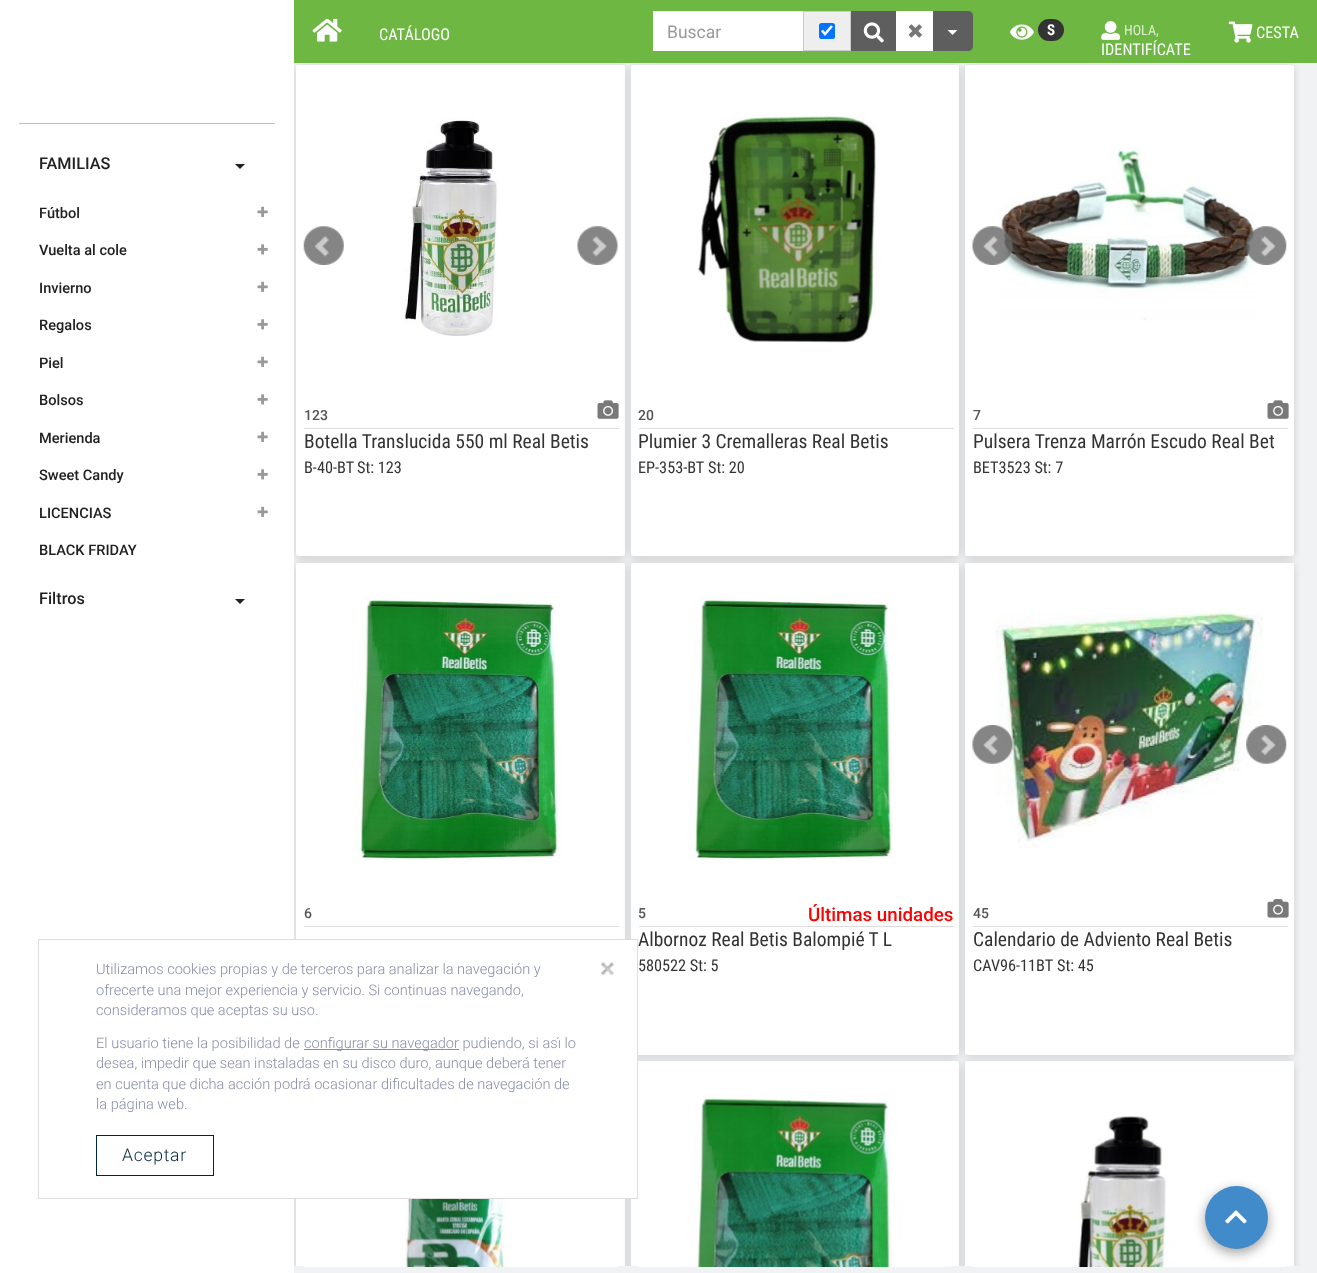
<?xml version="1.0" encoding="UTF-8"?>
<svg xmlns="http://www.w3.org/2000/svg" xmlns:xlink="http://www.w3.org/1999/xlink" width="1317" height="1273">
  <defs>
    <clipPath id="clip1"><rect x="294" y="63" width="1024" height="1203" /></clipPath>
    <linearGradient id="g1" gradientUnits="userSpaceOnUse" x1="304" y1="461" x2="619" y2="461"><stop offset="0.86" stop-color="#ffffff" stop-opacity="0" /><stop offset="1" stop-color="#ffffff" /></linearGradient>
    <linearGradient id="g2" gradientUnits="userSpaceOnUse" x1="973" y1="461" x2="1288" y2="461"><stop offset="0.86" stop-color="#ffffff" stop-opacity="0" /><stop offset="1" stop-color="#ffffff" /></linearGradient>
  </defs>
  <rect width="100%" height="100%" fill="#f1f2f3" />
  <rect x="296" y="65" width="329" height="491" fill="#ffffff" />
  <rect x="296" y="66" width="329" height="492" rx="4" fill="#000000" fill-opacity="0.15" filter="blur(4px)" />
  <rect x="296" y="65" width="329" height="491" rx="4" fill="#ffffff" />
  <rect x="631" y="65" width="328" height="491" fill="#ffffff" />
  <rect x="304" y="428" width="315" height="1" fill="#dddddd" />
  <image x="597" y="400" width="22" height="19" xlink:href="image12.png" />
  <rect x="631" y="66" width="328" height="492" rx="4" fill="#000000" fill-opacity="0.15" filter="blur(4px)" />
  <rect x="631" y="65" width="328" height="491" rx="4" fill="#ffffff" />
  <rect x="296" y="563" width="329" height="4" fill="#ffffff" />
  <rect x="296" y="564" width="329" height="492" rx="4" fill="#000000" fill-opacity="0.15" filter="blur(4px)" />
  <rect x="296" y="563" width="329" height="492" rx="4" fill="#ffffff" />
  <rect x="639" y="428" width="315" height="1" fill="#dddddd" />
  <rect x="965" y="65" width="329" height="491" fill="#ffffff" />
  <rect x="965" y="66" width="329" height="492" rx="4" fill="#000000" fill-opacity="0.15" filter="blur(4px)" />
  <rect x="631" y="563" width="328" height="492" fill="#ffffff" />
  <rect x="965" y="65" width="329" height="491" rx="4" fill="#ffffff" />
  <rect x="304" y="926" width="315" height="1" fill="#dddddd" />
  <rect x="631" y="564" width="328" height="492" rx="4" fill="#000000" fill-opacity="0.15" filter="blur(4px)" />
  <rect x="631" y="563" width="328" height="492" rx="4" fill="#ffffff" />
  <g clip-path="url(#clip1)">
    <rect x="296" y="1063" width="329" height="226" rx="4" fill="#000000" fill-opacity="0.15" filter="blur(4px)" />
  </g>
  <rect width="294" height="1273" fill="#ffffff" />
  <rect x="19" y="123" width="256" height="1" fill="#bdbdbd" />
  <path d="M 235 164 h 10 l -5 5 z" fill="#212121" />
  <image x="257" y="206" width="11" height="11" xlink:href="image1.png" />
  <image x="257" y="244" width="11" height="11" xlink:href="image2.png" />
  <image x="257" y="281" width="11" height="11" xlink:href="image1.png" />
  <image x="257" y="319" width="11" height="11" xlink:href="image2.png" />
  <image x="257" y="356" width="11" height="11" xlink:href="image1.png" />
  <image x="257" y="394" width="11" height="11" xlink:href="image2.png" />
  <image x="257" y="431" width="11" height="11" xlink:href="image1.png" />
  <image x="257" y="469" width="11" height="11" xlink:href="image2.png" />
  <image x="257" y="506" width="11" height="11" xlink:href="image1.png" />
  <path d="M 235 599 h 10 l -5 5 z" fill="#212121" />
  <rect x="294" width="1023" height="63" fill="#6db742" />
  <image x="312" y="18" width="30" height="24" xlink:href="image3.png" />
  <rect x="653" y="12" width="150" height="39" fill="#ffffff" />
  <rect x="653" y="11" width="150" height="1" fill="#ececec" />
  <rect x="803.5" y="11.5" width="47" height="39" fill="#eeeeee" stroke="#cccccc" />
  <rect x="819" y="23" width="16" height="16" rx="2.5" fill="#0075ff" />
  <path d="M 822 30.5 l 3 3.5 l 7 -8" fill="none" stroke="#ffffff" stroke-width="2.6" />
  <rect x="851" y="11" width="45" height="40" fill="#5e5e5e" />
  <image x="863" y="22" width="21" height="21" xlink:href="image4.png" />
  <rect x="896" y="11" width="37" height="40" fill="#ffffff" />
  <image x="908" y="24" width="14" height="14" xlink:href="image5.png" />
  <path d="M 933 11 h 35 c 3 0 5 2 5 5 v 30 c 0 3 -2 5 -5 5 h -35 z" fill="#5e5e5e" />
  <path d="M 947.5 30 h 10 l -5 5 z" fill="#ffffff" />
  <image x="1010" y="24" width="24" height="16" xlink:href="image6.png" />
  <rect x="1038" y="19" width="26" height="22" rx="11" fill="#333333" />
  <image x="1101" y="21" width="19" height="19" xlink:href="image7.png" />
  <image x="1228" y="21" width="25" height="22" xlink:href="image8.png" />
  <image x="404" y="117" width="94" height="219" xlink:href="image9.png" />
  <image x="303" y="226" width="41" height="39" xlink:href="image10.png" />
  <image x="577" y="226" width="41" height="39" xlink:href="image11.png" />
  <rect x="577" y="434" width="11" height="15" fill="url(#g1)" />
  <image x="697" y="112" width="180" height="231" xlink:href="image13.png" />
  <image x="999" y="148" width="256" height="173" xlink:href="image14.png" />
  <image x="972" y="226" width="41" height="39" xlink:href="image15.png" />
  <image x="1246" y="226" width="41" height="39" xlink:href="image16.png" />
  <rect x="973" y="428" width="315" height="1" fill="#dddddd" />
  <image x="1267" y="400" width="22" height="19" xlink:href="image12.png" />
  <rect x="1250" y="434" width="24" height="15" fill="url(#g2)" />
  <image x="354" y="595" width="209" height="265" xlink:href="image17.png" />
  <image x="688" y="595" width="208" height="265" xlink:href="image18.png" />
  <rect x="639" y="926" width="315" height="1" fill="#dddddd" />
  <rect x="965" y="563" width="329" height="492" fill="#ffffff" />
  <rect x="965" y="564" width="329" height="492" rx="4" fill="#000000" fill-opacity="0.15" filter="blur(4px)" />
  <rect x="965" y="563" width="329" height="492" rx="4" fill="#ffffff" />
  <image x="995" y="608" width="268" height="240" xlink:href="image19.png" />
  <image x="972" y="725" width="41" height="39" xlink:href="image20.png" />
  <image x="1246" y="725" width="41" height="39" xlink:href="image21.png" />
  <rect x="973" y="926" width="315" height="1" fill="#dddddd" />
  <image x="1267" y="899" width="22" height="19" xlink:href="image22.png" />
  <rect x="296" y="1199" width="329" height="67" fill="#ffffff" />
  <image x="304" y="1199" width="314" height="68" xlink:href="image23.png" />
  <rect x="955" y="1061" width="4" height="4" fill="#ffffff" />
  <g clip-path="url(#clip1)">
    <rect x="631" y="1063" width="328" height="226" rx="4" fill="#000000" fill-opacity="0.15" filter="blur(4px)" />
  </g>
  <path d="M 635 1061 h 320 c 2 0 4 2 4 4 v 201 h -328 v -201 c 0 -2 2 -4 4 -4 z" fill="#ffffff" />
  <image x="638" y="1094" width="314" height="173" xlink:href="image24.png" />
  <rect x="965" y="1061" width="329" height="4" fill="#ffffff" />
  <g clip-path="url(#clip1)">
    <rect x="965" y="1063" width="329" height="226" rx="4" fill="#000000" fill-opacity="0.15" filter="blur(4px)" />
  </g>
  <path d="M 969 1061 h 321 c 2 0 4 2 4 4 v 201 h -329 v -201 c 0 -2 2 -4 4 -4 z" fill="#ffffff" />
  <image x="973" y="1116" width="314" height="151" xlink:href="image25.png" />
  <rect x="1205" y="1190" width="63" height="63" rx="31.5" fill="#000000" fill-opacity="0.23" filter="blur(6px)" />
  <rect x="1205" y="1190" width="63" height="63" rx="31.5" fill="#000000" fill-opacity="0.16" filter="blur(6px)" />
  <circle cx="1236.5" cy="1217.5" r="31.5" fill="#428bca" />
  <image x="1225" y="1210" width="22" height="14" xlink:href="image26.png" />
  <rect x="294" y="940" width="343" height="258" fill="#ffffff" />
  <rect x="38.5" y="939.5" width="599" height="259" fill="none" stroke="#dddddd" />
  <image x="601" y="962" width="13" height="14" xlink:href="image27.png" />
  <rect x="304" y="1049" width="155" height="1" fill="#878ba8" />
  <rect x="96.5" y="1135.5" width="117" height="40" fill="none" stroke="#00273d" />
  <text x="39" y="169" style="font-family: Roboto; font-size: 16.25px; font-weight: 500; fill: #212121">FAMILIAS</text>
  <text x="39" y="218" style="font-family: Roboto; font-size: 14.6px; font-weight: 500; fill: #212121">Fútbol</text>
  <text x="39" y="255" style="font-family: Roboto; font-size: 14.6px; font-weight: 500; fill: #212121">Vuelta al cole</text>
  <text x="39" y="293" style="font-family: Roboto; font-size: 14.6px; font-weight: 500; fill: #212121">Invierno</text>
  <text x="39" y="330" style="font-family: Roboto; font-size: 14.6px; font-weight: 500; fill: #212121">Regalos</text>
  <text x="39" y="368" style="font-family: Roboto; font-size: 14.6px; font-weight: 500; fill: #212121">Piel</text>
  <text x="39" y="405" style="font-family: Roboto; font-size: 14.6px; font-weight: 500; fill: #212121">Bolsos</text>
  <text x="39" y="443" style="font-family: Roboto; font-size: 14.6px; font-weight: 500; fill: #212121">Merienda</text>
  <text x="39" y="480" style="font-family: Roboto; font-size: 14.6px; font-weight: 500; fill: #212121">Sweet Candy</text>
  <text x="39" y="518" style="font-family: Roboto; font-size: 14.6px; font-weight: 500; fill: #212121">LICENCIAS</text>
  <text x="39" y="555" style="font-family: Roboto; font-size: 14.6px; font-weight: 500; fill: #212121">BLACK FRIDAY</text>
  <text x="39" y="604" style="font-family: Roboto; font-size: 16.25px; font-weight: 500; fill: #212121">Filtros</text>
  <text x="379" y="40" style="font-family: Roboto Condensed; font-size: 16.25px; fill: #ffffff">CATÁLOGO</text>
  <text x="667" y="38" style="font-family: Roboto; font-size: 17.5px; fill: #999999">Buscar</text>
  <text x="1047" y="35" style="font-family: Roboto Condensed; font-size: 15px; font-weight: bold; fill: #ffffff">S</text>
  <text x="1124" y="35" style="font-family: Roboto Condensed; font-size: 14px; fill: #dbedd0">HOLA,</text>
  <text x="1101" y="55" style="font-family: Roboto Condensed; font-size: 16.25px; fill: #ffffff">IDENTIFÍCATE</text>
  <text x="1256" y="38" style="font-family: Roboto Condensed; font-size: 16.25px; fill: #ffffff">CESTA</text>
  <text x="304" y="420" style="font-family: Roboto; font-size: 14px; font-weight: 500; fill: #555555">123</text>
  <text x="304" y="448" style="font-family: Roboto Condensed; font-size: 19.5px; fill: #333333">Botella Translucida 550 ml Real Betis</text>
  <text x="304" y="473" style="font-family: Roboto Condensed; font-size: 16.25px; fill: #333333">B-40-BT</text>
  <text x="357" y="473" style="font-family: Roboto Condensed; font-size: 16.25px; fill: #333333">St: 123</text>
  <text x="638" y="420" style="font-family: Roboto; font-size: 14px; font-weight: 500; fill: #555555">20</text>
  <text x="638" y="448" style="font-family: Roboto Condensed; font-size: 19.5px; fill: #333333">Plumier 3 Cremalleras Real Betis</text>
  <text x="638" y="473" style="font-family: Roboto Condensed; font-size: 16.25px; fill: #333333">EP-353-BT</text>
  <text x="708" y="473" style="font-family: Roboto Condensed; font-size: 16.25px; fill: #333333">St: 20</text>
  <text x="973" y="420" style="font-family: Roboto; font-size: 14px; font-weight: 500; fill: #555555">7</text>
  <text x="973" y="448" style="font-family: Roboto Condensed; font-size: 19.5px; fill: #333333">Pulsera Trenza Marrón Escudo Real Bet</text>
  <text x="973" y="473" style="font-family: Roboto Condensed; font-size: 16.25px; fill: #333333">BET3523 St: 7</text>
  <text x="304" y="918" style="font-family: Roboto; font-size: 14px; font-weight: 500; fill: #555555">6</text>
  <text x="638" y="918" style="font-family: Roboto; font-size: 14px; font-weight: 500; fill: #555555">5</text>
  <text x="808" y="921" style="font-family: Roboto; font-size: 18.75px; font-weight: 500; fill: #ff0000">Últimas unidades</text>
  <text x="638" y="946" style="font-family: Roboto Condensed; font-size: 19.5px; fill: #333333">Albornoz Real Betis Balompié T L</text>
  <text x="638" y="971" style="font-family: Roboto Condensed; font-size: 16.25px; fill: #333333">580522 St: 5</text>
  <text x="973" y="918" style="font-family: Roboto; font-size: 14px; font-weight: 500; fill: #555555">45</text>
  <text x="973" y="946" style="font-family: Roboto Condensed; font-size: 19.5px; fill: #333333">Calendario de Adviento Real Betis</text>
  <text x="973" y="971" style="font-family: Roboto Condensed; font-size: 16.25px; fill: #333333">CAV96-11BT</text>
  <text x="1057" y="971" style="font-family: Roboto Condensed; font-size: 16.25px; fill: #333333">St: 45</text>
  <text x="96" y="974" style="font-family: Roboto; font-size: 14.6px; font-weight: 300; fill: #878ba8">Utilizamos cookies propias y de terceros para analizar la navegación y</text>
  <text x="96" y="995" style="font-family: Roboto; font-size: 14.6px; font-weight: 300; fill: #878ba8">ofrecerte una mejor experiencia y servicio. Si continuas navegando,</text>
  <text x="96" y="1015" style="font-family: Roboto; font-size: 14.6px; font-weight: 300; fill: #878ba8">consideramos que aceptas su uso.</text>
  <text x="96" y="1048" style="font-family: Roboto; font-size: 14.6px; font-weight: 300; fill: #878ba8">El usuario tiene la posibilidad de</text>
  <text x="304" y="1048" style="font-family: Roboto; font-size: 14.6px; font-weight: 300; fill: #878ba8">configurar su navegador pudiendo, si así lo</text>
  <text x="96" y="1068" style="font-family: Roboto; font-size: 14.6px; font-weight: 300; fill: #878ba8">desea, impedir que sean instaladas en su disco duro, aunque deberá tener</text>
  <text x="96" y="1089" style="font-family: Roboto; font-size: 14.6px; font-weight: 300; fill: #878ba8">en cuenta que dicha acción podrá ocasionar dificultades de navegación de</text>
  <text x="96" y="1109" style="font-family: Roboto; font-size: 14.6px; font-weight: 300; fill: #878ba8">la página web.</text>
  <text x="122" y="1161" style="font-family: Roboto; font-size: 17.5px; font-weight: 300; letter-spacing: 0.75px; fill: #00273d">Aceptar</text>
</svg>
